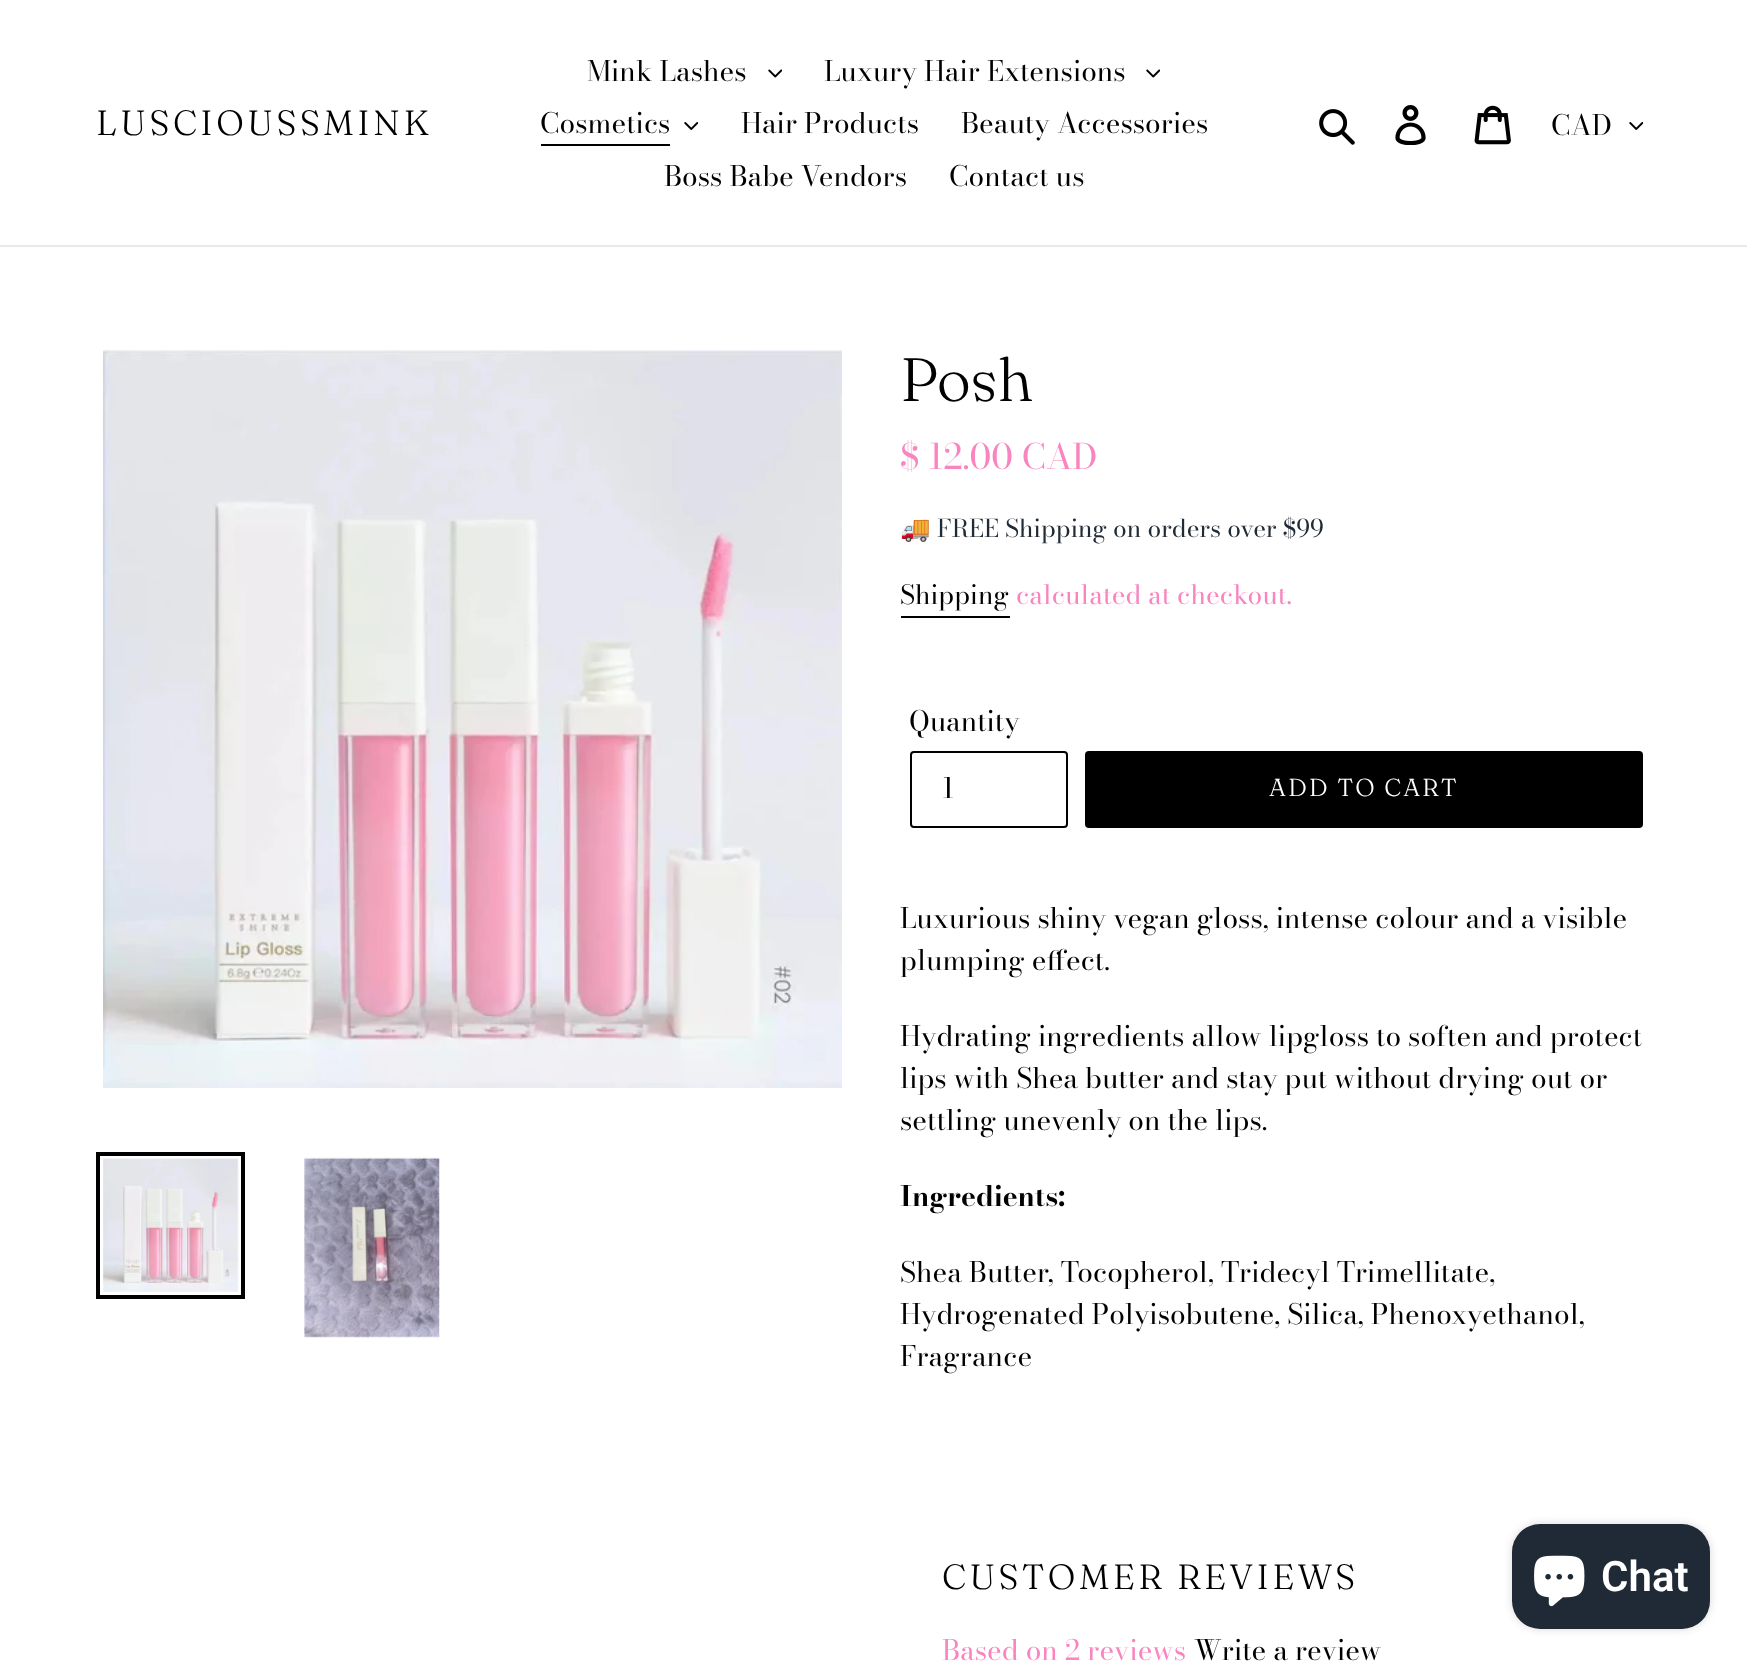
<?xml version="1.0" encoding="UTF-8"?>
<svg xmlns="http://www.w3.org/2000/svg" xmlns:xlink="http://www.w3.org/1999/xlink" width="1747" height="1666">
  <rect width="100%" height="100%" fill="#ffffff" />
  <rect y="245" width="1747" height="2" fill="#e8e9eb" />
  <image x="768" y="69" width="14" height="9" xlink:href="image1.png" />
  <image x="1146" y="69" width="14" height="9" xlink:href="image1.png" />
  <rect x="541" y="144" width="129" height="2" fill="#000000" />
  <image x="684" y="122" width="14" height="8" xlink:href="image2.png" />
  <image x="1319" y="109" width="36" height="36" xlink:href="image3.png" />
  <image x="1395" y="105" width="31" height="40" xlink:href="image4.png" />
  <image x="1474" y="105" width="37" height="40" xlink:href="image5.png" />
  <image x="1629" y="122" width="14" height="8" xlink:href="image2.png" />
  <image x="103" y="350" width="739" height="738" xlink:href="image6.png" />
  <rect x="98" y="1154" width="145" height="143" fill="none" stroke="#000000" stroke-width="4" />
  <image x="103" y="1158" width="136" height="134" xlink:href="image7.png" />
  <image x="304" y="1157" width="136" height="181" xlink:href="image8.png" />
  <rect x="901" y="616" width="109" height="2" fill="#000000" />
  <rect x="911" y="752" width="156" height="75" rx="3" fill="none" stroke="#000000" stroke-width="2" />
  <rect x="1085" y="751" width="558" height="77" rx="4" fill="#000000" />
  <rect x="1512" y="1524" width="198" height="105" rx="28" fill="#000000" fill-opacity="0.15" filter="blur(4.5px)" />
  <rect x="1512" y="1524" width="198" height="105" rx="28" fill="#202a36" />
  <image x="1534" y="1555" width="51" height="52" xlink:href="image9.png" />
  <text x="96" y="135" style="font-family: 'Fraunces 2'; font-size: 35px; font-weight: 300; letter-spacing: 3.5px; fill: #000000">LUSCIOUSSMINK</text>
  <text x="587" y="81" style="font-family: 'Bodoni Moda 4'; font-size: 28px; fill: #000000">Mink Lashes</text>
  <text x="824" y="81" style="font-family: 'Bodoni Moda 4'; font-size: 28px; fill: #000000">Luxury Hair Extensions</text>
  <text x="540" y="133" style="font-family: 'Bodoni Moda 4'; font-size: 28px; fill: #000000">Cosmetics</text>
  <text x="741" y="133" style="font-family: 'Bodoni Moda 4'; font-size: 28px; fill: #000000">Hair Products</text>
  <text x="961" y="133" style="font-family: 'Bodoni Moda 4'; font-size: 28px; fill: #000000">Beauty Accessories</text>
  <text x="664" y="186" style="font-family: 'Bodoni Moda 4'; font-size: 28px; fill: #000000">Boss Babe Vendors</text>
  <text x="949" y="186" style="font-family: 'Bodoni Moda 4'; font-size: 28px; fill: #000000">Contact us</text>
  <text x="1551" y="135" style="font-family: 'Bodoni Moda 4'; font-size: 28px; fill: #000000">CAD</text>
  <text x="900" y="401" style="font-family: Fraunces; font-size: 61px; font-weight: 300; fill: #000000">Posh</text>
  <text x="900" y="469" style="font-family: Bodoni Moda; font-size: 35px; fill: #f984bf">$ 12.00 CAD</text>
  <text x="900" y="537" style="font-family: Noto Color Emoji; font-size: 24.5px; fill: #212b35">🚚</text>
  <text x="937" y="537" style="font-family: 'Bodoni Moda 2'; font-size: 24.5px; fill: #212b35">FREE Shipping on orders over $99</text>
  <text x="900" y="604" style="font-family: 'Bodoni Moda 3'; font-size: 26.25px; fill: #000000">Shipping</text>
  <text x="1016" y="604" style="font-family: 'Bodoni Moda 3'; font-size: 26.25px; fill: #f984bf">calculated at checkout.</text>
  <text x="909" y="731" style="font-family: 'Bodoni Moda 4'; font-size: 28px; fill: #000000">Quantity</text>
  <text x="942" y="798" style="font-family: 'Bodoni Moda 4'; font-size: 28px; fill: #000000">1</text>
  <text x="1269" y="796" style="font-family: 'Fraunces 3'; font-size: 24.5px; font-weight: 300; letter-spacing: 2px; fill: #ffffff">ADD TO CART</text>
  <text x="900" y="928" style="font-family: 'Bodoni Moda 4'; font-size: 28px; fill: #000000">Luxurious shiny vegan gloss, intense colour and a visible</text>
  <text x="900" y="970" style="font-family: 'Bodoni Moda 4'; font-size: 28px; fill: #000000">plumping effect.</text>
  <text x="900" y="1046" style="font-family: 'Bodoni Moda 4'; font-size: 28px; fill: #000000">Hydrating ingredients allow lipgloss to soften and protect</text>
  <text x="900" y="1088" style="font-family: 'Bodoni Moda 4'; font-size: 28px; fill: #000000">lips with Shea butter and stay put without drying out or</text>
  <text x="900" y="1130" style="font-family: 'Bodoni Moda 4'; font-size: 28px; fill: #000000">settling unevenly on the lips.</text>
  <text x="900" y="1206" style="font-family: Bodoni Moda; font-size: 28px; font-weight: bold; fill: #000000">Ingredients:</text>
  <text x="900" y="1282" style="font-family: 'Bodoni Moda 4'; font-size: 28px; fill: #000000">Shea Butter, Tocopherol, Tridecyl Trimellitate,</text>
  <text x="900" y="1324" style="font-family: 'Bodoni Moda 4'; font-size: 28px; fill: #000000">Hydrogenated Polyisobutene, Silica, Phenoxyethanol,</text>
  <text x="900" y="1366" style="font-family: 'Bodoni Moda 4'; font-size: 28px; fill: #000000">Fragrance</text>
  <text x="942" y="1589" style="font-family: 'Fraunces 2'; font-size: 35px; font-weight: 300; letter-spacing: 3.5px; fill: #000000">CUSTOMER REVIEWS</text>
  <text x="942" y="1660" style="font-family: 'Bodoni Moda 4'; font-size: 28px; fill: #f984bf">Based on 2 reviews</text>
  <text x="1194" y="1660" style="font-family: 'Bodoni Moda 4'; font-size: 28px; fill: #000000">Write a review</text>
  <text x="1601" y="1591" style="font-family: Roboto; font-size: 42px; font-weight: 600; fill: #ffffff">Chat</text>
</svg>
